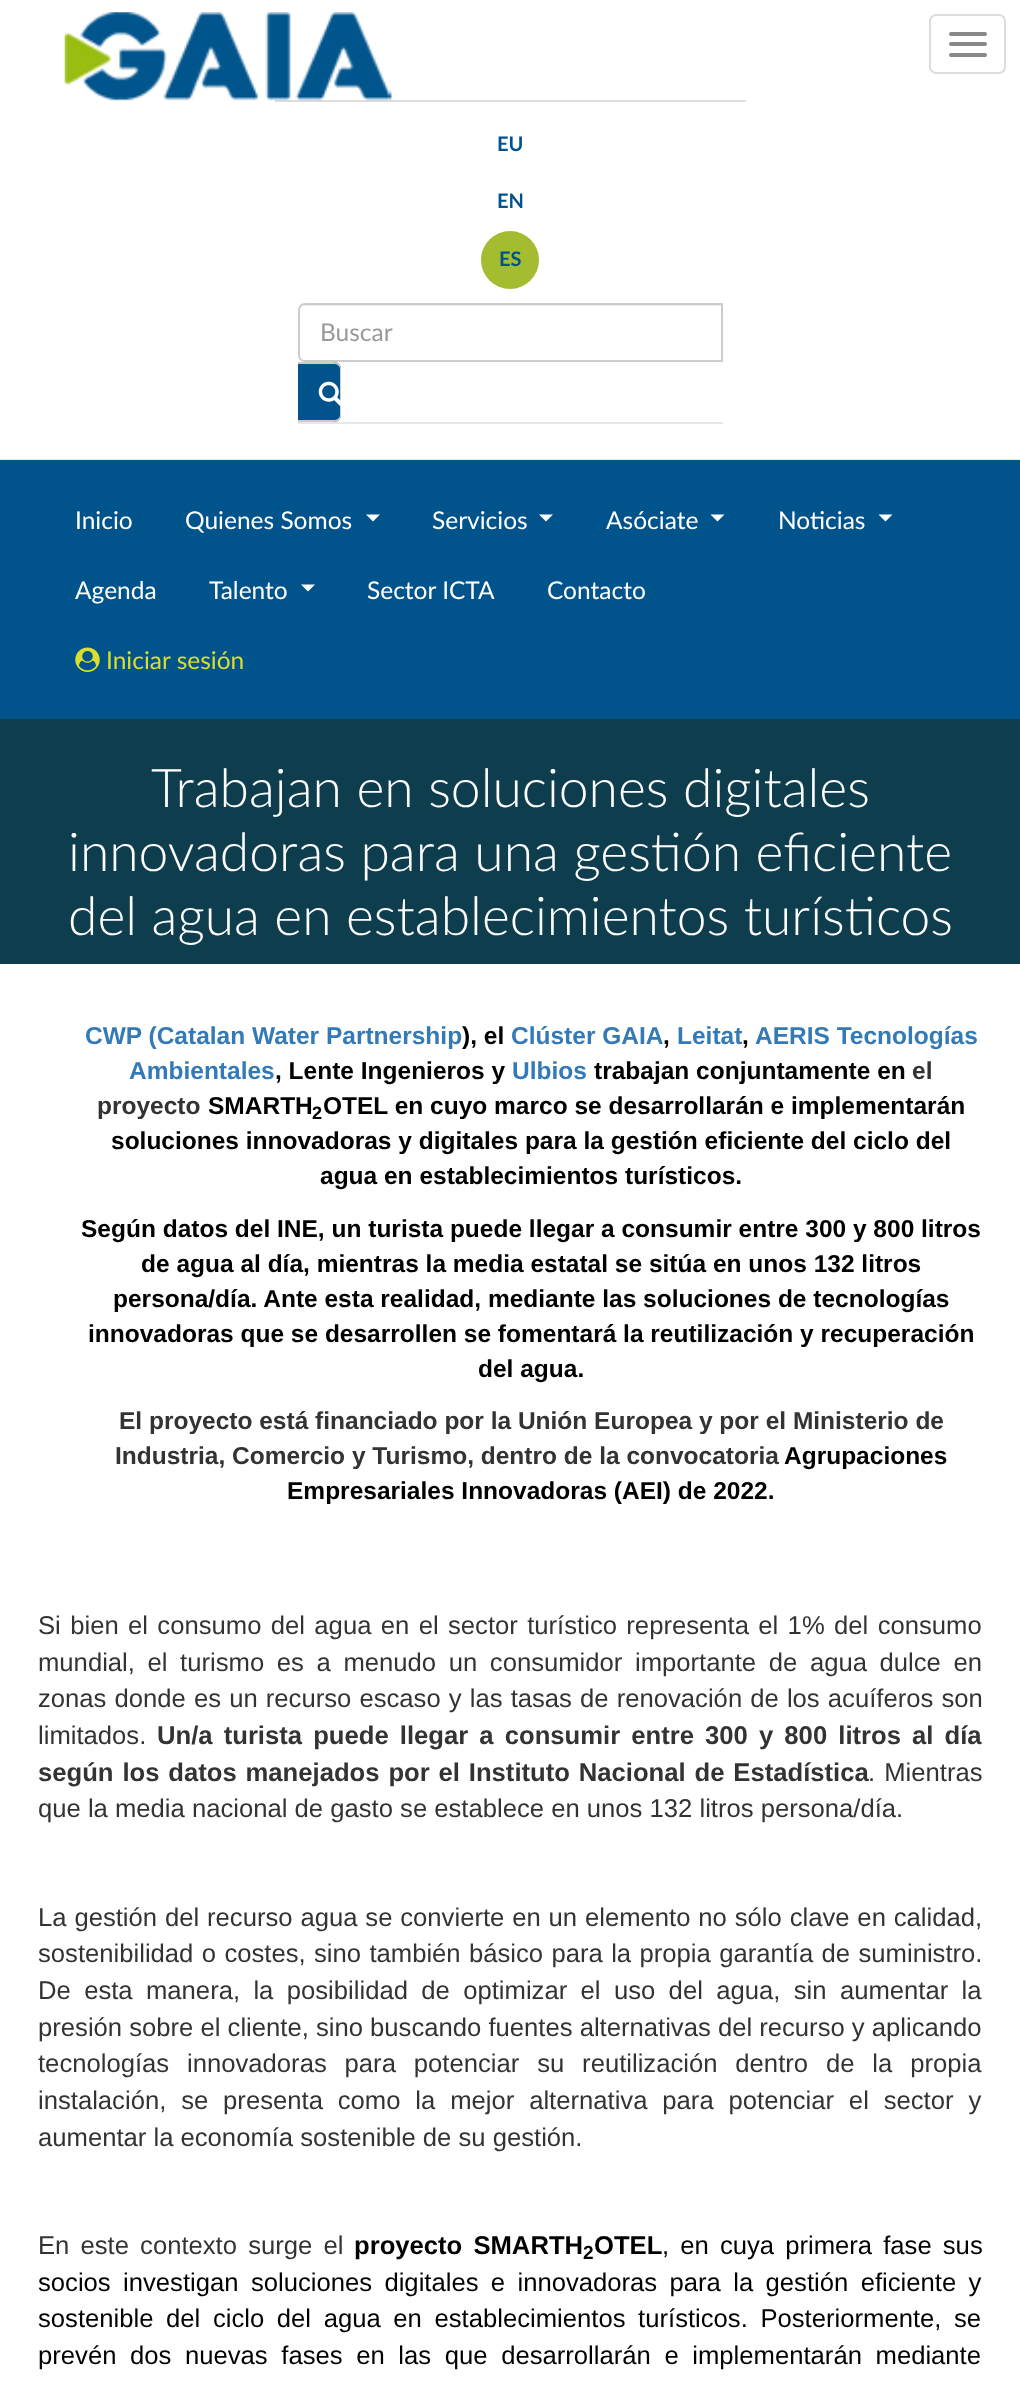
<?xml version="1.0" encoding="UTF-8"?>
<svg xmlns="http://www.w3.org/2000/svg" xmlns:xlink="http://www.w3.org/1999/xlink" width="1020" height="2396">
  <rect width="100%" height="100%" fill="#ffffff" />
  <rect x="275" y="100" width="471" height="2" fill="#dddddd" />
  <image x="64" y="12" width="328" height="89" xlink:href="image1.png" />
  <rect x="930" y="15" width="75" height="58" rx="6" fill="none" stroke="#dddddd" stroke-width="2" />
  <rect x="949" y="32" width="38" height="4" rx="2" fill="#888888" />
  <rect x="949" y="42" width="38" height="4" rx="2" fill="#888888" />
  <rect x="949" y="53" width="38" height="4" rx="2" fill="#888888" />
  <circle cx="510" cy="260" r="29" fill="#a4bc30" />
  <rect x="298" y="422" width="425" height="2" fill="#e7e7e7" />
  <path d="M 304 306 h 417 v -1 h -417 c -4 0 -5 4 -5 7 c 0 -3 3 -6 5 -6 z" fill="#ececec" />
  <path d="M 305 304 h 417 v 57 h -417 c -3.5 0 -6 -2.5 -6 -6 v -45 c 0 -3.5 2.5 -6 6 -6 z" fill="none" stroke="#cccccc" stroke-width="2" />
  <path d="M 298 362 h 36 c 4 0 7 3 7 7 v 46 c 0 4 -3 7 -7 7 h -36 z" fill="#01538b" />
  <path d="M 298 362 h 36 c 4 0 7 3 7 7 v 46 c 0 4 -3 7 -7 7 h -36 z m 0 2 h 36 c 3 0 6 2 6 5 v 46 c 0 3 -3 5 -6 5 h -36 z" fill="#cccccc" fill-rule="evenodd" />
  <image x="318" y="381" width="23" height="26" xlink:href="image2.png" />
  <rect y="459" width="1020" height="1" fill="#e7e7e7" />
  <rect y="460" width="1020" height="259" fill="#01538b" />
  <path d="M 366 514.5 h 14 l -7 7 z" fill="#ffffff" />
  <path d="M 539 514.5 h 14 l -7 7 z" fill="#ffffff" />
  <path d="M 710.5 514.5 h 14 l -7 7 z" fill="#ffffff" />
  <path d="M 878.5 514.5 h 14 l -7 7 z" fill="#ffffff" />
  <path d="M 301 584.5 h 14 l -7 7 z" fill="#ffffff" />
  <image x="75" y="647" width="25" height="25" xlink:href="image3.png" />
  <rect y="719" width="1020" height="245" fill="#0e3e4e" />
  <text x="497" y="151" style="font-family: Lato; font-size: 20px; font-weight: bold; fill: #01538b">EU</text>
  <text x="497" y="208" style="font-family: Lato; font-size: 20px; font-weight: bold; fill: #01538b">EN</text>
  <text x="499" y="266" style="font-family: Lato; font-size: 20px; font-weight: bold; fill: #01538b">ES</text>
  <text x="320" y="341" style="font-family: Lato; font-size: 24.5px; fill: #999999">Buscar</text>
  <text x="75" y="529" style="font-family: Lato; font-size: 24.5px; fill: #ffffff">Inicio</text>
  <text x="185" y="529" style="font-family: Lato; font-size: 24.5px; fill: #ffffff">Quienes Somos</text>
  <text x="432" y="529" style="font-family: Lato; font-size: 24.5px; fill: #ffffff">Servicios</text>
  <text x="606" y="529" style="font-family: Lato; font-size: 24.5px; fill: #ffffff">Asóciate</text>
  <text x="778" y="529" style="font-family: Lato; font-size: 24.5px; fill: #ffffff">Noticias</text>
  <text x="75" y="599" style="font-family: Lato; font-size: 24.5px; fill: #ffffff">Agenda</text>
  <text x="209" y="599" style="font-family: Lato; font-size: 24.5px; fill: #ffffff">Talento</text>
  <text x="367" y="599" style="font-family: Lato; font-size: 24.5px; fill: #ffffff">Sector ICTA</text>
  <text x="547" y="599" style="font-family: Lato; font-size: 24.5px; fill: #ffffff">Contacto</text>
  <text x="106" y="669" style="font-family: Lato; font-size: 24.5px; fill: #dadf2d">Iniciar sesión</text>
  <text x="151" y="807" style="font-family: Lato; font-size: 53.4px; font-weight: 300; fill: #ffffff">Trabajan en soluciones digitales</text>
  <text x="68" y="871" style="font-family: Lato; font-size: 53.4px; font-weight: 300; fill: #ffffff">innovadoras para una gestión eficiente</text>
  <text x="68" y="935" style="font-family: Lato; font-size: 53.4px; font-weight: 300; fill: #ffffff">del agua en establecimientos turísticos</text>
  <text x="85" y="1044" style="font-family: Liberation Sans; font-size: 24.5px; font-weight: bold; fill: #337ab7">CWP (Catalan Water Partnership</text>
  <text x="462" y="1044" style="font-family: Liberation Sans; font-size: 24.5px; font-weight: bold; fill: #000000">), el</text>
  <text x="511" y="1044" style="font-family: Liberation Sans; font-size: 24.5px; font-weight: bold; fill: #337ab7">Clúster GAIA</text>
  <text x="663" y="1044" style="font-family: Liberation Sans; font-size: 24.5px; font-weight: bold; fill: #000000">,</text>
  <text x="677" y="1044" style="font-family: Liberation Sans; font-size: 24.5px; font-weight: bold; fill: #337ab7">Leitat</text>
  <text x="742" y="1044" style="font-family: Liberation Sans; font-size: 24.5px; font-weight: bold; fill: #000000">,</text>
  <text x="755" y="1044" style="font-family: Liberation Sans; font-size: 24.5px; font-weight: bold; fill: #337ab7">AERIS Tecnologías</text>
  <text x="129" y="1079" style="font-family: Liberation Sans; font-size: 24.5px; font-weight: bold; fill: #337ab7">Ambientales</text>
  <text x="275" y="1079" style="font-family: Liberation Sans; font-size: 24.5px; font-weight: bold; fill: #000000">, Lente Ingenieros y</text>
  <text x="512" y="1079" style="font-family: Liberation Sans; font-size: 24.5px; font-weight: bold; fill: #337ab7">Ulbios</text>
  <text x="594" y="1079" style="font-family: Liberation Sans; font-size: 24.5px; font-weight: bold; fill: #000000">trabajan conjuntamente en</text>
  <text x="912" y="1079" style="font-family: Liberation Sans; font-size: 24.5px; font-weight: bold; fill: #333333">el</text>
  <text x="97" y="1114" style="font-family: Liberation Sans; font-size: 24.5px; font-weight: bold; fill: #333333">proyecto</text>
  <text x="208" y="1114" style="font-family: Liberation Sans; font-size: 24.5px; font-weight: bold; fill: #000000">SMARTH</text>
  <text x="312" y="1119" style="font-family: Liberation Sans; font-size: 18px; font-weight: bold; fill: #000000">2</text>
  <text x="323" y="1114" style="font-family: Liberation Sans; font-size: 24.5px; font-weight: bold; fill: #000000">OTEL en cuyo marco se desarrollarán e implementarán</text>
  <text x="111" y="1149" style="font-family: Liberation Sans; font-size: 24.5px; font-weight: bold; fill: #000000">soluciones innovadoras y digitales para la gestión eficiente del ciclo del</text>
  <text x="320" y="1184" style="font-family: Liberation Sans; font-size: 24.5px; font-weight: bold; fill: #000000">agua en establecimientos turísticos.</text>
  <text x="81" y="1237" style="font-family: Liberation Sans; font-size: 24.5px; font-weight: bold; fill: #000000">Según datos del INE, un turista puede llegar a consumir entre 300 y 800 litros</text>
  <text x="141" y="1272" style="font-family: Liberation Sans; font-size: 24.5px; font-weight: bold; fill: #000000">de agua al día, mientras la media estatal se sitúa en unos 132 litros</text>
  <text x="113" y="1307" style="font-family: Liberation Sans; font-size: 24.5px; font-weight: bold; fill: #000000">persona/día. Ante esta realidad, mediante las soluciones de tecnologías</text>
  <text x="88" y="1342" style="font-family: Liberation Sans; font-size: 24.5px; font-weight: bold; fill: #000000">innovadoras que se desarrollen se fomentará la reutilización y recuperación</text>
  <text x="478" y="1377" style="font-family: Liberation Sans; font-size: 24.5px; font-weight: bold; fill: #000000">del agua.</text>
  <text x="119" y="1429" style="font-family: Liberation Sans; font-size: 24.5px; font-weight: bold; fill: #333333">El proyecto está financiado por la Unión Europea y por el Ministerio de</text>
  <text x="115" y="1464" style="font-family: Liberation Sans; font-size: 24.5px; font-weight: bold; fill: #333333">Industria, Comercio y Turismo, dentro de la convocatoria</text>
  <text x="784" y="1464" style="font-family: Liberation Sans; font-size: 24.5px; font-weight: bold; fill: #000000">Agrupaciones</text>
  <text x="287" y="1499" style="font-family: Liberation Sans; font-size: 24.5px; font-weight: bold; fill: #000000">Empresariales Innovadoras (AEI) de 2022.</text>
  <text x="38" y="1634" word-spacing="2.25" style="font-family: Liberation Sans; font-size: 25.65px; fill: #333333">Si bien el consumo del agua en el sector turístico representa el 1% del consumo</text>
  <text x="38" y="1671" word-spacing="5.5" style="font-family: Liberation Sans; font-size: 25.65px; fill: #333333">mundial, el turismo es a menudo un consumidor importante de agua dulce en</text>
  <text x="38" y="1707" word-spacing="1" style="font-family: Liberation Sans; font-size: 25.65px; fill: #333333">zonas donde es un recurso escaso y las tasas de renovación de los acuíferos son</text>
  <text x="38" y="1744" style="font-family: Liberation Sans; font-size: 25.65px; fill: #333333">limitados.</text>
  <text x="157" y="1744" word-spacing="4" style="font-family: Liberation Sans; font-size: 25.65px; font-weight: bold; fill: #333333">Un/a turista puede llegar a consumir entre 300 y 800 litros al día</text>
  <text x="38" y="1781" word-spacing="1.75" style="font-family: Liberation Sans; font-size: 25.65px; font-weight: bold; fill: #333333">según los datos manejados por el Instituto Nacional de Estadística</text>
  <text x="868" y="1781" word-spacing="2" style="font-family: Liberation Sans; font-size: 25.65px; fill: #333333">. Mientras</text>
  <text x="38" y="1817" style="font-family: Liberation Sans; font-size: 25.65px; fill: #333333">que la media nacional de gasto se establece en unos 132 litros persona/día.</text>
  <text x="38" y="1926" word-spacing="0.75" style="font-family: Liberation Sans; font-size: 25.65px; fill: #333333">La gestión del recurso agua se convierte en un elemento no sólo clave en calidad,</text>
  <text x="38" y="1962" word-spacing="1.25" style="font-family: Liberation Sans; font-size: 25.65px; fill: #333333">sostenibilidad o costes, sino también básico para la propia garantía de suministro.</text>
  <text x="38" y="1999" word-spacing="6.25" style="font-family: Liberation Sans; font-size: 25.65px; fill: #333333">De esta manera, la posibilidad de optimizar el uso del agua, sin aumentar la</text>
  <text x="38" y="2036" style="font-family: Liberation Sans; font-size: 25.65px; fill: #333333">presión sobre el cliente, sino buscando fuentes alternativas del recurso y aplicando</text>
  <text x="38" y="2072" word-spacing="10.75" style="font-family: Liberation Sans; font-size: 25.65px; fill: #333333">tecnologías innovadoras para potenciar su reutilización dentro de la propia</text>
  <text x="38" y="2109" word-spacing="7.75" style="font-family: Liberation Sans; font-size: 25.65px; fill: #333333">instalación, se presenta como la mejor alternativa para potenciar el sector y</text>
  <text x="38" y="2146" style="font-family: Liberation Sans; font-size: 25.65px; fill: #333333">aumentar la economía sostenible de su gestión.</text>
  <text x="38" y="2254" word-spacing="4" style="font-family: Liberation Sans; font-size: 25.65px; fill: #333333">En este contexto surge el</text>
  <text x="354" y="2254" word-spacing="4" style="font-family: Liberation Sans; font-size: 25.65px; font-weight: bold; fill: #000000">proyecto SMARTH</text>
  <text x="583" y="2259" style="font-family: Liberation Sans; font-size: 19px; font-weight: bold; fill: #000000">2</text>
  <text x="594" y="2254" style="font-family: Liberation Sans; font-size: 25.65px; font-weight: bold; fill: #000000">OTEL</text>
  <text x="662" y="2254" word-spacing="4" style="font-family: Liberation Sans; font-size: 25.65px; fill: #000000">, en cuya primera fase sus</text>
  <text x="38" y="2291" word-spacing="5.25" style="font-family: Liberation Sans; font-size: 25.65px; fill: #000000">socios investigan soluciones digitales e innovadoras para la gestión eficiente y</text>
  <text x="38" y="2327" word-spacing="5.5" style="font-family: Liberation Sans; font-size: 25.65px; fill: #000000">sostenible del ciclo del agua en establecimientos turísticos. Posteriormente, se</text>
  <text x="38" y="2364" word-spacing="6.5" style="font-family: Liberation Sans; font-size: 25.65px; fill: #000000">prevén dos nuevas fases en las que desarrollarán e implementarán mediante</text>
</svg>
